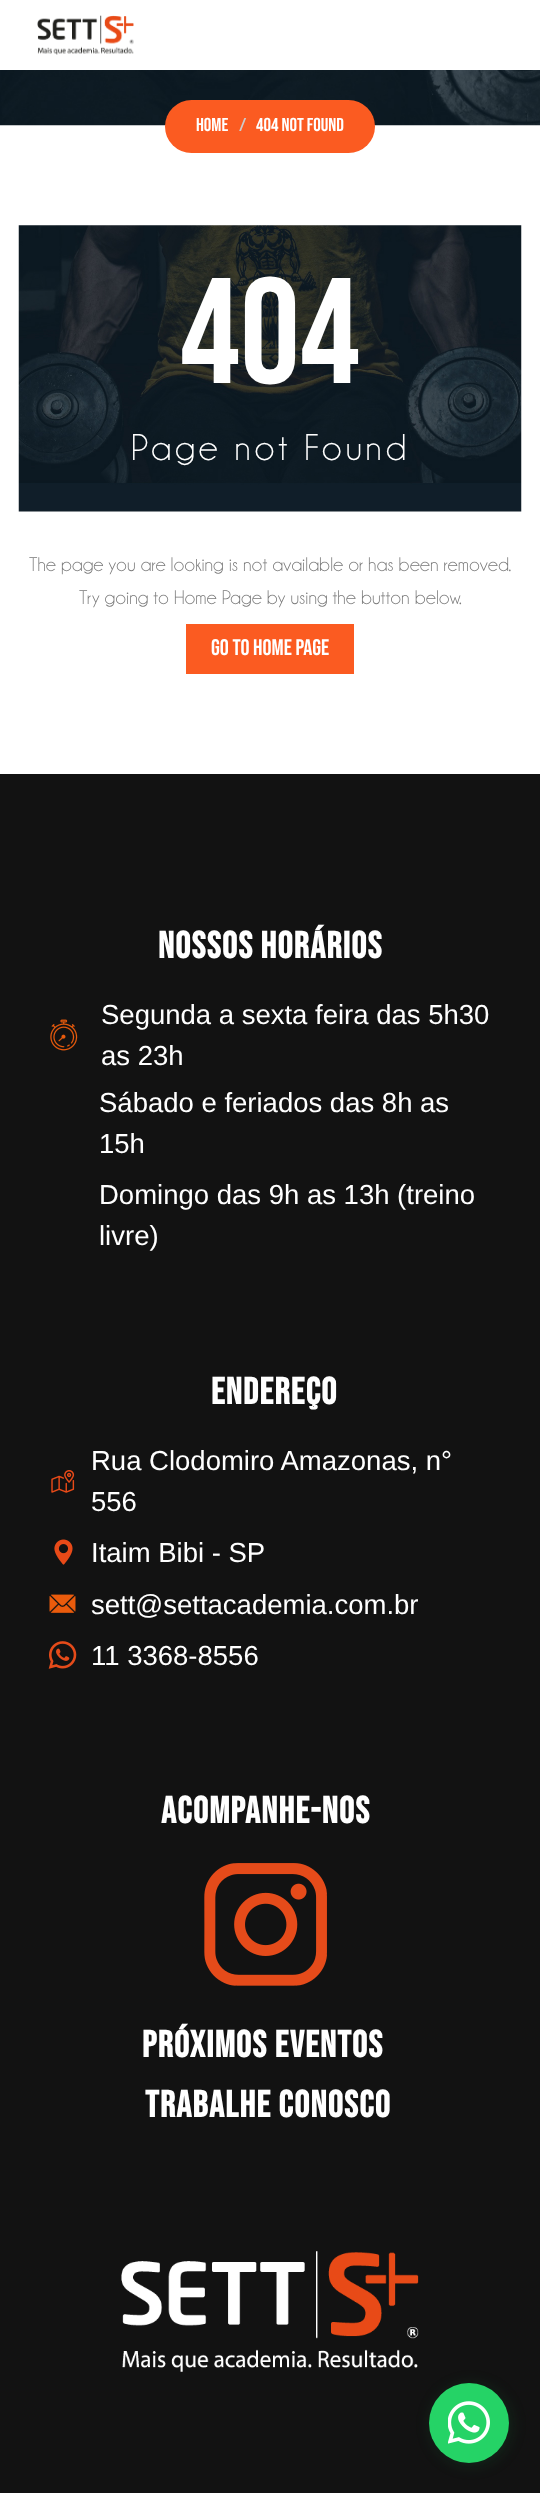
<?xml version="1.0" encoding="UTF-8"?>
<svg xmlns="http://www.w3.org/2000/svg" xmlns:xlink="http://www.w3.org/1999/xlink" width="540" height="2493">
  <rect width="100%" height="100%" fill="#ffffff" />
  <image x="37" y="15" width="97" height="40" xlink:href="image1.png" />
  <image x="0" y="70" width="540" height="56" xlink:href="image2.png" />
  <rect x="165" y="100" width="210" height="53" rx="26.5" fill="#fb5b21" />
  <image x="18" y="225" width="504" height="287" xlink:href="image3.png" />
  <rect x="186" y="624" width="168" height="50" fill="#fb5b21" />
  <rect y="774" width="540" height="1719" fill="#121212" />
  <image x="50" y="1019" width="28" height="32" xlink:href="image4.png" />
  <image x="51" y="1470" width="24" height="23" xlink:href="image5.png" />
  <image x="54" y="1539" width="19" height="26" xlink:href="image6.png" />
  <image x="49" y="1594" width="27" height="19" xlink:href="image7.png" />
  <image x="48" y="1641" width="29" height="28" xlink:href="image8.png" />
  <image x="204" y="1863" width="123" height="123" xlink:href="image9.png" />
  <image x="121" y="2251" width="298" height="121" xlink:href="image10.png" />
  <rect x="431" y="2385" width="80" height="80" rx="40" fill="#167c3c" fill-opacity="0.2" filter="blur(7.5px)" />
  <circle cx="469" cy="2423" r="40" fill="#25d366" />
  <image x="448" y="2401" width="42" height="43" xlink:href="image11.png" />
  <text x="196" y="131" style="font-family: Bebas Neue; font-size: 18.75px; fill: #ffffff">Home</text>
  <text x="239" y="131" style="font-family: Bebas Neue; font-size: 18.75px; fill: #cccccc">/</text>
  <text x="256" y="131" style="font-family: Bebas Neue; font-size: 18.75px; fill: #ffffff">404 Not Found</text>
  <text x="180" y="383" style="font-family: Bebas Neue; font-size: 150px; fill: #ffffff">404</text>
  <text x="131" y="460" style="font-family: 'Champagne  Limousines'; font-size: 37.5px; letter-spacing: 3.75px; fill: #ffffff">Page not Found</text>
  <text x="29" y="571" style="font-family: 'Champagne  Limousines'; font-size: 20px; fill: #7a7a7a">The page you are looking is not available or has been removed.</text>
  <text x="79" y="604" style="font-family: 'Champagne  Limousines'; font-size: 20px; fill: #7a7a7a">Try going to Home Page by using the button below.</text>
  <text x="211" y="655" style="font-family: Bebas Neue; font-size: 22.5px; fill: #ffffff">Go to Home Page</text>
  <text x="158" y="958" style="font-family: Bebas Neue; font-size: 37.5px; font-weight: bold; letter-spacing: 1.25px; fill: #ffffff">NOSSOS HORÁRIOS</text>
  <text x="101" y="1024" style="font-family: Liberation Sans; font-size: 27.5px; fill: #ffffff">Segunda a sexta feira das 5h30</text>
  <text x="101" y="1065" style="font-family: Liberation Sans; font-size: 27.5px; fill: #ffffff">as 23h</text>
  <text x="99" y="1112" style="font-family: Liberation Sans; font-size: 27.5px; fill: #ffffff">Sábado e feriados das 8h as</text>
  <text x="99" y="1153" style="font-family: Liberation Sans; font-size: 27.5px; fill: #ffffff">15h</text>
  <text x="99" y="1204" style="font-family: Liberation Sans; font-size: 27.5px; fill: #ffffff">Domingo das 9h as 13h (treino</text>
  <text x="99" y="1245" style="font-family: Liberation Sans; font-size: 27.5px; fill: #ffffff">livre)</text>
  <text x="211" y="1404" style="font-family: Bebas Neue; font-size: 37.5px; font-weight: bold; letter-spacing: 1.25px; fill: #ffffff">ENDEREÇO</text>
  <text x="91" y="1470" style="font-family: Liberation Sans; font-size: 27.5px; fill: #ffffff">Rua Clodomiro Amazonas, n°</text>
  <text x="91" y="1511" style="font-family: Liberation Sans; font-size: 27.5px; fill: #ffffff">556</text>
  <text x="91" y="1562" style="font-family: Liberation Sans; font-size: 27.5px; fill: #ffffff">Itaim Bibi - SP</text>
  <text x="91" y="1614" style="font-family: Liberation Sans; font-size: 27.5px; fill: #ffffff">sett@settacademia.com.br</text>
  <text x="91" y="1665" style="font-family: Liberation Sans; font-size: 27.5px; fill: #ffffff">11 3368-8556</text>
  <text x="161" y="1823" style="font-family: Bebas Neue; font-size: 37.5px; font-weight: bold; letter-spacing: 1.25px; fill: #ffffff">ACOMPANHE-NOS</text>
  <text x="142" y="2057" style="font-family: Bebas Neue; font-size: 37.5px; font-weight: bold; letter-spacing: 1.25px; fill: #ffffff">Próximos Eventos</text>
  <text x="145" y="2117" style="font-family: Bebas Neue; font-size: 37.5px; font-weight: bold; letter-spacing: 1.25px; fill: #ffffff">Trabalhe Conosco</text>
</svg>
